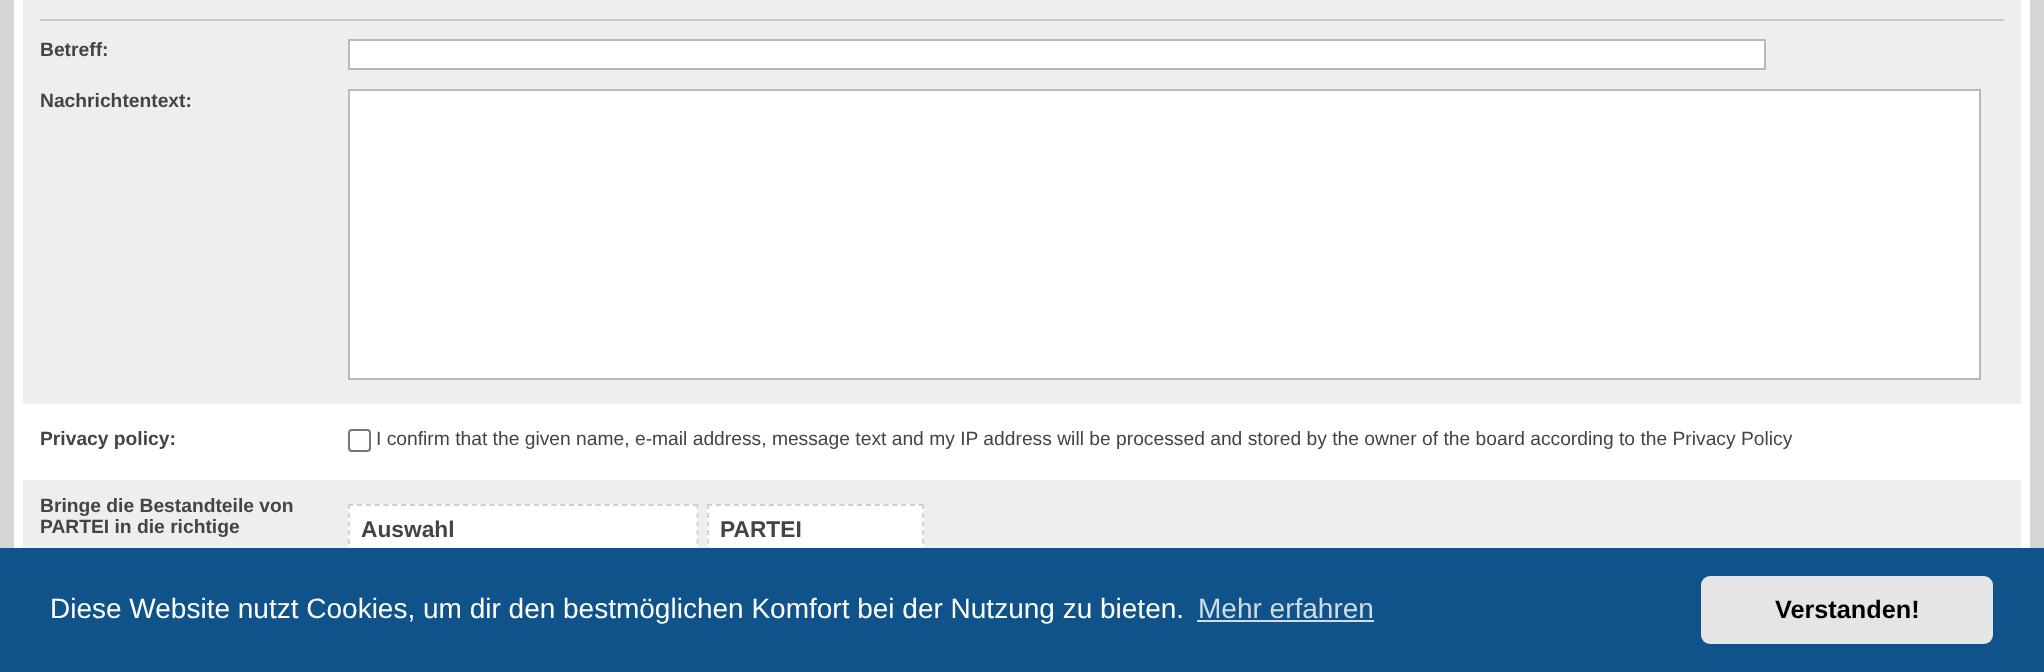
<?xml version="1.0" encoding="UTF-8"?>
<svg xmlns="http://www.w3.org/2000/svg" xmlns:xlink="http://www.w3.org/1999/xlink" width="2044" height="672">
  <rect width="100%" height="100%" fill="#d5d5d5" />
  <rect x="14" width="2016" height="548" fill="#ffffff" />
  <rect x="23" width="1998" height="404" fill="#eeeeee" />
  <rect x="40" y="19" width="1964" height="2" fill="#cccccc" />
  <rect x="349" y="40" width="1416" height="29" fill="#ffffff" stroke="#b4bac0" stroke-width="2" />
  <rect x="349" y="90" width="1631" height="289" fill="#ffffff" stroke="#b4bac0" stroke-width="2" />
  <rect x="349" y="430" width="21" height="21" rx="3" fill="none" stroke="#767676" stroke-width="2" />
  <rect x="23" y="480" width="1998" height="68" fill="#eeeeee" />
  <rect x="348" y="504" width="350" height="44" fill="#ffffff" />
  <path d="M 348 505 h 350" fill="none" stroke="#c9d2d8" stroke-width="1.8" stroke-dasharray="5.25 3.59" />
  <path d="M 697.5 504 v 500.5" fill="none" stroke="#c9d2d8" stroke-width="1.8" stroke-dasharray="5.25 3.43" />
  <path d="M 349 504 v 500.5" fill="none" stroke="#c9d2d8" stroke-width="1.8" stroke-dasharray="5.25 3.43" />
  <rect x="707" y="504" width="217" height="44" fill="#ffffff" />
  <path d="M 707 505 h 217" fill="none" stroke="#c9d2d8" stroke-width="1.8" stroke-dasharray="5.25 3.57" />
  <path d="M 923 504 v 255.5" fill="none" stroke="#c9d2d8" stroke-width="1.8" stroke-dasharray="5.25 3.38" />
  <path d="M 708 504 v 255.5" fill="none" stroke="#c9d2d8" stroke-width="1.8" stroke-dasharray="5.25 3.38" />
  <rect y="548" width="2044" height="124" fill="#0f538a" />
  <rect x="1197" y="620" width="177" height="2" fill="#cfdde8" />
  <rect x="1701" y="576" width="292" height="68" rx="9" fill="#e5e5e5" />
  <text x="40" y="56" style="font-family: Liberation Sans; font-size: 19.25px; font-weight: bold; fill: #444444">Betreff:</text>
  <text x="40" y="107" style="font-family: Liberation Sans; font-size: 19.25px; font-weight: bold; fill: #444444">Nachrichtentext:</text>
  <text x="40" y="445" style="font-family: Liberation Sans; font-size: 19.25px; font-weight: bold; fill: #444444">Privacy policy:</text>
  <text x="376" y="445" style="font-family: Liberation Sans; font-size: 19.25px; fill: #444444">I confirm that the given name, e-mail address, message text and my IP address will be processed and stored by the owner of the board according to the Privacy Policy</text>
  <text x="40" y="512" style="font-family: Liberation Sans; font-size: 19.25px; font-weight: bold; fill: #444444">Bringe die Bestandteile von</text>
  <text x="40" y="533" style="font-family: Liberation Sans; font-size: 19.25px; font-weight: bold; fill: #444444">PARTEI in die richtige</text>
  <text x="361" y="537" style="font-family: Liberation Sans; font-size: 22.75px; font-weight: bold; fill: #444444">Auswahl</text>
  <text x="720" y="537" style="font-family: Liberation Sans; font-size: 22.75px; font-weight: bold; fill: #444444">PARTEI</text>
  <text x="50" y="618" style="font-family: Liberation Sans; font-size: 28px; fill: #ffffff">Diese Website nutzt Cookies, um dir den bestmöglichen Komfort bei der Nutzung zu bieten.</text>
  <text x="1198" y="618" style="font-family: Liberation Sans; font-size: 28px; fill: #cfdde8">Mehr erfahren</text>
  <text x="1775" y="618" style="font-family: Liberation Sans; font-size: 25.25px; font-weight: bold; fill: #000000">Verstanden!</text>
</svg>
